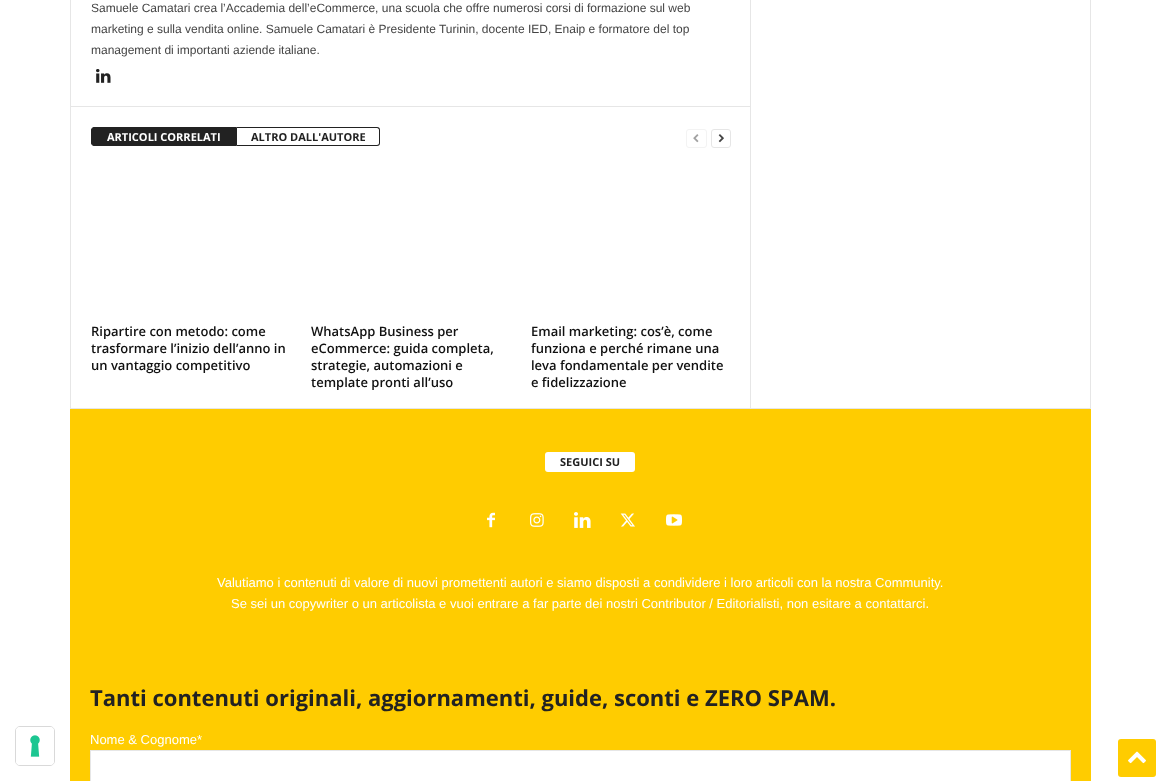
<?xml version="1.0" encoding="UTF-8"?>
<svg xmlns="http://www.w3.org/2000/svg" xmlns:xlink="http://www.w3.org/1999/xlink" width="1161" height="781">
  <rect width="100%" height="100%" fill="#ffffff" />
  <rect x="15.5" y="726.5" width="39" height="39" rx="4.5" fill="none" stroke="#d9d9d9" />
  <rect x="16" y="727" width="38" height="38" rx="4" fill="#ffffff" />
  <image x="30" y="735" width="10" height="22" xlink:href="image1.png" />
  <rect x="70" y="408" width="1021" height="1" fill="#e6e6e6" />
  <rect x="70" width="1" height="408" fill="#e6e6e6" />
  <image x="96" y="69" width="15" height="14" xlink:href="image2.png" />
  <rect x="71" y="106" width="679" height="1" fill="#e6e6e6" />
  <path d="M 94 127.5 h 142.5 v 18 h -142.5 c -1.5 0 -2.5 -1 -2.5 -2.5 v -13 c 0 -1.5 1 -2.5 2.5 -2.5 z" fill="#222222" stroke="#222222" />
  <path d="M 237 127 h 140 c 2 0 3 1 3 3 v 13 c 0 2 -1 3 -3 3 h -140 z m 0 1 h 140 c 1 0 2 1 2 2 v 13 c 0 1 -1 2 -2 2 h -140 z" fill="#222222" fill-rule="evenodd" />
  <rect x="686.5" y="129.5" width="20" height="18" rx="2.5" fill="none" stroke="#f3f3f3" />
  <image x="693" y="134" width="6" height="9" xlink:href="image3.png" />
  <rect x="711.5" y="129.5" width="19" height="18" rx="2.5" fill="none" stroke="#e6e6e6" />
  <image x="718" y="134" width="6" height="9" xlink:href="image4.png" />
  <rect x="750" width="1" height="408" fill="#e6e6e6" />
  <rect x="1090" width="1" height="408" fill="#e6e6e6" />
  <rect x="70" y="409" width="1021" height="372" fill="#ffcc00" />
  <rect x="545" y="452" width="90" height="20" rx="3" fill="#ffffff" />
  <image x="487" y="512" width="8" height="16" xlink:href="image5.png" />
  <image x="530" y="513" width="14" height="14" xlink:href="image6.png" />
  <image x="574" y="512" width="17" height="16" xlink:href="image7.png" />
  <image x="620" y="513" width="15" height="14" xlink:href="image8.png" />
  <image x="666" y="514" width="16" height="12" xlink:href="image9.png" />
  <rect x="90.5" y="750.5" width="980" height="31" fill="#ffffff" stroke="#e6e6e6" />
  <rect x="1118" y="739" width="38" height="38" rx="3" fill="#ffcc00" />
  <image x="1128" y="751" width="18" height="13" xlink:href="image10.png" />
  <text x="91" y="12" style="font-family: Liberation Sans; font-size: 12px; fill: #444444">Samuele Camatari crea l’Accademia dell’eCommerce, una scuola che offre numerosi corsi di formazione sul web</text>
  <text x="91" y="33" style="font-family: Liberation Sans; font-size: 12px; fill: #444444">marketing e sulla vendita online. Samuele Camatari è Presidente Turinin, docente IED, Enaip e formatore del top</text>
  <text x="91" y="54" style="font-family: Liberation Sans; font-size: 12px; fill: #444444">management di importanti aziende italiane.</text>
  <text x="107" y="141" style="font-family: Open Sans; font-size: 11px; font-weight: bold; fill: #ffffff">ARTICOLI CORRELATI</text>
  <text x="251" y="141" style="font-family: Open Sans; font-size: 11px; font-weight: bold; fill: #222222">ALTRO DALL'AUTORE</text>
  <text x="91" y="336" style="font-family: Open Sans; font-size: 13px; font-weight: 600; fill: #111111">Ripartire con metodo: come</text>
  <text x="91" y="353" style="font-family: Open Sans; font-size: 13px; font-weight: 600; fill: #111111">trasformare l’inizio dell’anno in</text>
  <text x="91" y="370" style="font-family: Open Sans; font-size: 13px; font-weight: 600; fill: #111111">un vantaggio competitivo</text>
  <text x="311" y="336" style="font-family: Open Sans; font-size: 13px; font-weight: 600; fill: #111111">WhatsApp Business per</text>
  <text x="311" y="353" style="font-family: Open Sans; font-size: 13px; font-weight: 600; fill: #111111">eCommerce: guida completa,</text>
  <text x="311" y="370" style="font-family: Open Sans; font-size: 13px; font-weight: 600; fill: #111111">strategie, automazioni e</text>
  <text x="311" y="387" style="font-family: Open Sans; font-size: 13px; font-weight: 600; fill: #111111">template pronti all’uso</text>
  <text x="531" y="336" style="font-family: Open Sans; font-size: 13px; font-weight: 600; fill: #111111">Email marketing: cos’è, come</text>
  <text x="531" y="353" style="font-family: Open Sans; font-size: 13px; font-weight: 600; fill: #111111">funziona e perché rimane una</text>
  <text x="531" y="370" style="font-family: Open Sans; font-size: 13px; font-weight: 600; fill: #111111">leva fondamentale per vendite</text>
  <text x="531" y="387" style="font-family: Open Sans; font-size: 13px; font-weight: 600; fill: #111111">e fidelizzazione</text>
  <text x="560" y="466" style="font-family: Open Sans; font-size: 11px; font-weight: bold; fill: #222222">SEGUICI SU</text>
  <text x="217" y="587" style="font-family: Liberation Sans; font-size: 13px; fill: #ffffff">Valutiamo i contenuti di valore di nuovi promettenti autori e siamo disposti a condividere i loro articoli con la nostra Community.</text>
  <text x="231" y="608" style="font-family: Liberation Sans; font-size: 13px; fill: #ffffff">Se sei un copywriter o un articolista e vuoi entrare a far parte dei nostri Contributor / Editorialisti, non esitare a contattarci.</text>
  <text x="90" y="706" style="font-family: Open Sans; font-size: 22px; font-weight: bold; fill: #222222">Tanti contenuti originali, aggiornamenti, guide, sconti e ZERO SPAM.</text>
  <text x="90" y="744" style="font-family: Liberation Sans; font-size: 13px; fill: #ffffff">Nome &amp; Cognome*</text>
</svg>
